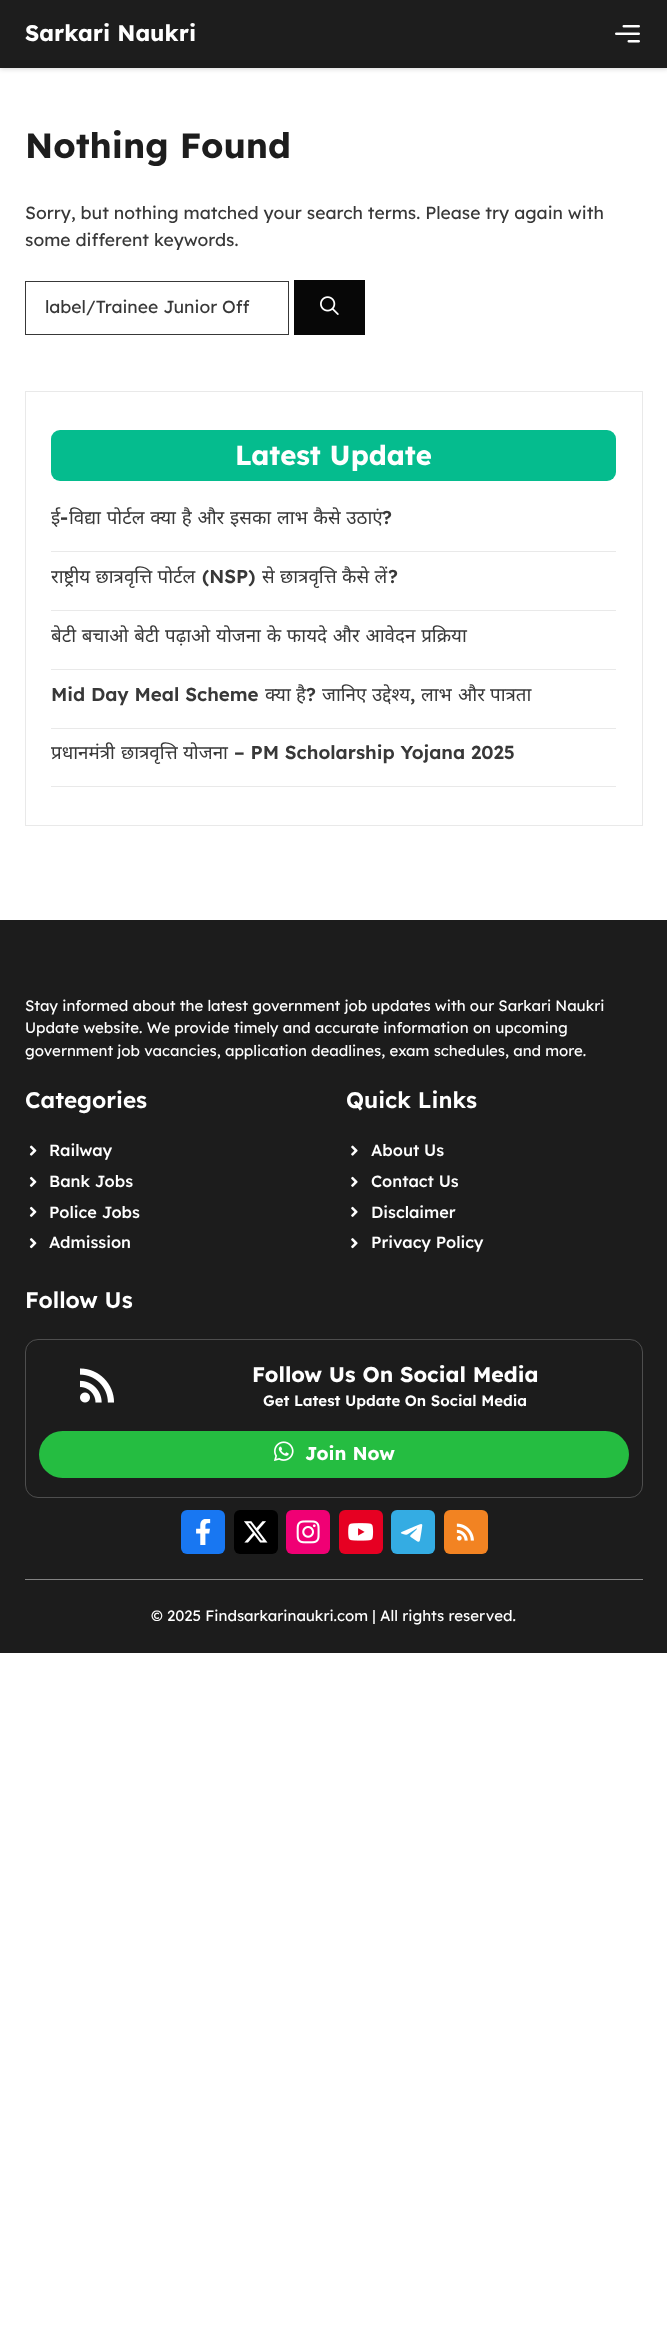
<?xml version="1.0" encoding="UTF-8"?>
<svg xmlns="http://www.w3.org/2000/svg" xmlns:xlink="http://www.w3.org/1999/xlink" width="667" height="2349">
  <rect width="100%" height="100%" fill="#ffffff" />
  <rect y="1" width="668" height="68" fill="#000000" fill-opacity="0.16" filter="blur(2.5px)" />
  <rect width="667" height="68" fill="#1d1d1d" />
  <image x="615" y="25" width="25" height="18" xlink:href="image1.png" />
  <rect x="25.5" y="281.5" width="263" height="53" fill="none" stroke="#383838" />
  <rect x="294" y="280" width="71" height="55" fill="#070707" />
  <image x="320" y="296" width="19" height="19" xlink:href="image2.png" />
  <rect x="25.5" y="391.5" width="617" height="434" fill="none" stroke="#e9e9e9" />
  <rect x="51" y="430" width="565" height="51" rx="9" fill="#05bc8e" />
  <rect x="51" y="551" width="565" height="1" fill="#e9e9e9" />
  <rect x="51" y="610" width="565" height="1" fill="#e9e9e9" />
  <rect x="51" y="669" width="565" height="1" fill="#e9e9e9" />
  <rect x="51" y="728" width="565" height="1" fill="#e9e9e9" />
  <rect x="51" y="786" width="565" height="1" fill="#e9e9e9" />
  <rect y="920" width="667" height="733" fill="#1c1c1c" />
  <rect x="25" y="1579" width="618" height="1" fill="#838383" />
  <image x="29" y="1145" width="8" height="11" xlink:href="image3.png" />
  <image x="29" y="1176" width="8" height="11" xlink:href="image4.png" />
  <image x="29" y="1206" width="8" height="11" xlink:href="image4.png" />
  <image x="29" y="1238" width="8" height="11" xlink:href="image5.png" />
  <image x="351" y="1145" width="7" height="11" xlink:href="image6.png" />
  <image x="351" y="1176" width="7" height="11" xlink:href="image7.png" />
  <image x="351" y="1206" width="7" height="11" xlink:href="image7.png" />
  <image x="351" y="1238" width="7" height="11" xlink:href="image8.png" />
  <rect x="25.5" y="1339.5" width="617" height="158" rx="12.5" fill="none" stroke="#4e4e4e" />
  <image x="80" y="1368" width="34" height="35" xlink:href="image9.png" />
  <rect x="39" y="1431" width="590" height="47" rx="23.5" fill="#25bd41" />
  <image x="274" y="1441" width="20" height="20" xlink:href="image10.png" />
  <rect x="181" y="1510" width="44" height="44" rx="6" fill="#1877f2" />
  <image x="196" y="1519" width="15" height="26" xlink:href="image11.png" />
  <rect x="234" y="1510" width="44" height="44" rx="6" fill="#000000" />
  <image x="244" y="1521" width="24" height="22" xlink:href="image12.png" />
  <rect x="286" y="1510" width="44" height="44" rx="6" fill="#f00074" />
  <image x="296" y="1520" width="24" height="24" xlink:href="image13.png" />
  <rect x="339" y="1510" width="44" height="44" rx="6" fill="#e60022" />
  <image x="348" y="1523" width="26" height="18" xlink:href="image14.png" />
  <rect x="391" y="1510" width="44" height="44" rx="6" fill="#34ace3" />
  <image x="400" y="1524" width="23" height="18" xlink:href="image15.png" />
  <rect x="444" y="1510" width="44" height="44" rx="6" fill="#f28322" />
  <image x="456" y="1523" width="18" height="18" xlink:href="image16.png" />
  <text x="25" y="41" style="font-family: Lexend Deca; font-size: 22.5px; font-weight: bold; fill: #ffffff">Sarkari Naukri</text>
  <text x="25" y="158" style="font-family: Lexend Deca; font-size: 35px; font-weight: bold; fill: #1d1d1d">Nothing Found</text>
  <text x="25" y="219" style="font-family: Lexend Deca; font-size: 17.5px; fill: #383838">Sorry, but nothing matched your search terms. Please try again with</text>
  <text x="25" y="246" style="font-family: Lexend Deca; font-size: 17.5px; fill: #383838">some different keywords.</text>
  <text x="45" y="313" style="font-family: Lexend Deca; font-size: 17.5px; fill: #383838">label/Trainee Junior Off</text>
  <text x="235" y="465" style="font-family: Lexend Deca; font-size: 27.5px; font-weight: bold; fill: #ffffff">Latest Update</text>
  <text x="51" y="524" style="font-family: Noto Sans; font-size: 18.75px; fill: #383838">ई</text>
  <text x="60" y="524" style="font-family: Lexend Deca; font-size: 18.75px; font-weight: 600; fill: #383838">-</text>
  <text x="69" y="524" word-spacing="0.9" style="font-family: Noto Sans; font-size: 18.75px; fill: #383838">विद्या पोर्टल क्या है और इसका लाभ कैसे उठाएं</text>
  <text x="382" y="524" style="font-family: Lexend Deca; font-size: 18.75px; font-weight: 600; fill: #383838">?</text>
  <text x="51" y="583" word-spacing="0.5" style="font-family: Noto Sans; font-size: 18.75px; fill: #383838">राष्ट्रीय छात्रवृत्ति पोर्टल</text>
  <text x="202" y="583" style="font-family: Lexend Deca; font-size: 18.75px; font-weight: 600; fill: #383838">(NSP)</text>
  <text x="262" y="583" word-spacing="0.5" style="font-family: Noto Sans; font-size: 18.75px; fill: #383838">से छात्रवृत्ति कैसे लें</text>
  <text x="388" y="583" style="font-family: Lexend Deca; font-size: 18.75px; font-weight: 600; fill: #383838">?</text>
  <text x="51" y="642" word-spacing="0.9" style="font-family: Noto Sans; font-size: 18.75px; fill: #383838">बेटी बचाओ बेटी पढ़ाओ योजना के फायदे और आवेदन प्रक्रिया</text>
  <text x="51" y="701" style="font-family: Lexend Deca; font-size: 18.75px; font-weight: 600; fill: #383838">Mid Day Meal Scheme</text>
  <text x="265" y="701" style="font-family: Noto Sans; font-size: 18.75px; fill: #383838">क्या</text>
  <text x="296" y="701" style="font-family: Noto Sans; font-size: 18.75px; fill: #383838">है</text>
  <text x="306" y="701" style="font-family: Lexend Deca; font-size: 18.75px; font-weight: 600; fill: #383838">?</text>
  <text x="322" y="701" style="font-family: Noto Sans; font-size: 18.75px; fill: #383838">जानिए</text>
  <text x="372" y="701" style="font-family: Noto Sans; font-size: 18.75px; fill: #383838">उद्देश्य</text>
  <text x="410" y="701" style="font-family: Lexend Deca; font-size: 18.75px; font-weight: 600; fill: #383838">,</text>
  <text x="421" y="701" style="font-family: Noto Sans; font-size: 18.75px; fill: #383838">लाभ</text>
  <text x="458" y="701" style="font-family: Noto Sans; font-size: 18.75px; fill: #383838">और</text>
  <text x="490" y="701" style="font-family: Noto Sans; font-size: 18.75px; fill: #383838">पात्रता</text>
  <text x="51" y="759" style="font-family: Noto Sans; font-size: 18.75px; fill: #383838">प्रधानमंत्री</text>
  <text x="121" y="759" style="font-family: Noto Sans; font-size: 18.75px; fill: #383838">छात्रवृत्ति</text>
  <text x="183" y="759" style="font-family: Noto Sans; font-size: 18.75px; fill: #383838">योजना</text>
  <text x="234" y="759" style="font-family: Lexend Deca; font-size: 18.75px; font-weight: 600; fill: #383838">– PM Scholarship Yojana 2025</text>
  <text x="25" y="1011" style="font-family: Lexend Deca; font-size: 15px; fill: #ffffff">Stay informed about the latest government job updates with our Sarkari Naukri</text>
  <text x="25" y="1033" style="font-family: Lexend Deca; font-size: 15px; fill: #ffffff">Update website. We provide timely and accurate information on upcoming</text>
  <text x="25" y="1056" style="font-family: Lexend Deca; font-size: 15px; fill: #ffffff">government job vacancies, application deadlines, exam schedules, and more.</text>
  <text x="25" y="1108" style="font-family: Lexend Deca; font-size: 22.5px; font-weight: 600; fill: #ffffff">Categories</text>
  <text x="49" y="1156" style="font-family: Lexend Deca; font-size: 16.25px; font-weight: 500; fill: #ffffff">Railway</text>
  <text x="49" y="1187" style="font-family: Lexend Deca; font-size: 16.25px; font-weight: 500; fill: #ffffff">Bank Jobs</text>
  <text x="49" y="1218" style="font-family: Lexend Deca; font-size: 16.25px; font-weight: 500; fill: #ffffff">Police Jobs</text>
  <text x="49" y="1248" style="font-family: Lexend Deca; font-size: 16.25px; font-weight: 500; fill: #ffffff">Admission</text>
  <text x="346" y="1108" style="font-family: Lexend Deca; font-size: 22.5px; font-weight: 600; fill: #ffffff">Quick Links</text>
  <text x="371" y="1156" style="font-family: Lexend Deca; font-size: 16.25px; font-weight: 500; fill: #ffffff">About Us</text>
  <text x="371" y="1187" style="font-family: Lexend Deca; font-size: 16.25px; font-weight: 500; fill: #ffffff">Contact Us</text>
  <text x="371" y="1218" style="font-family: Lexend Deca; font-size: 16.25px; font-weight: 500; fill: #ffffff">Disclaimer</text>
  <text x="371" y="1248" style="font-family: Lexend Deca; font-size: 16.25px; font-weight: 500; fill: #ffffff">Privacy Policy</text>
  <text x="25" y="1308" style="font-family: Lexend Deca; font-size: 22.5px; font-weight: 600; fill: #ffffff">Follow Us</text>
  <text x="252" y="1382" style="font-family: Lexend Deca; font-size: 21.25px; font-weight: bold; fill: #ffffff">Follow Us On Social Media</text>
  <text x="263" y="1406" style="font-family: Lexend Deca; font-size: 15px; font-weight: 600; fill: #ffffff">Get Latest Update On Social Media</text>
  <text x="305" y="1460" style="font-family: Lexend Deca; font-size: 18.75px; font-weight: bold; fill: #ffffff">Join Now</text>
  <text x="151" y="1621" style="font-family: Lexend Deca; font-size: 15px; fill: #ffffff">© 2025 Findsarkarinaukri.com | All rights reserved.</text>
</svg>
